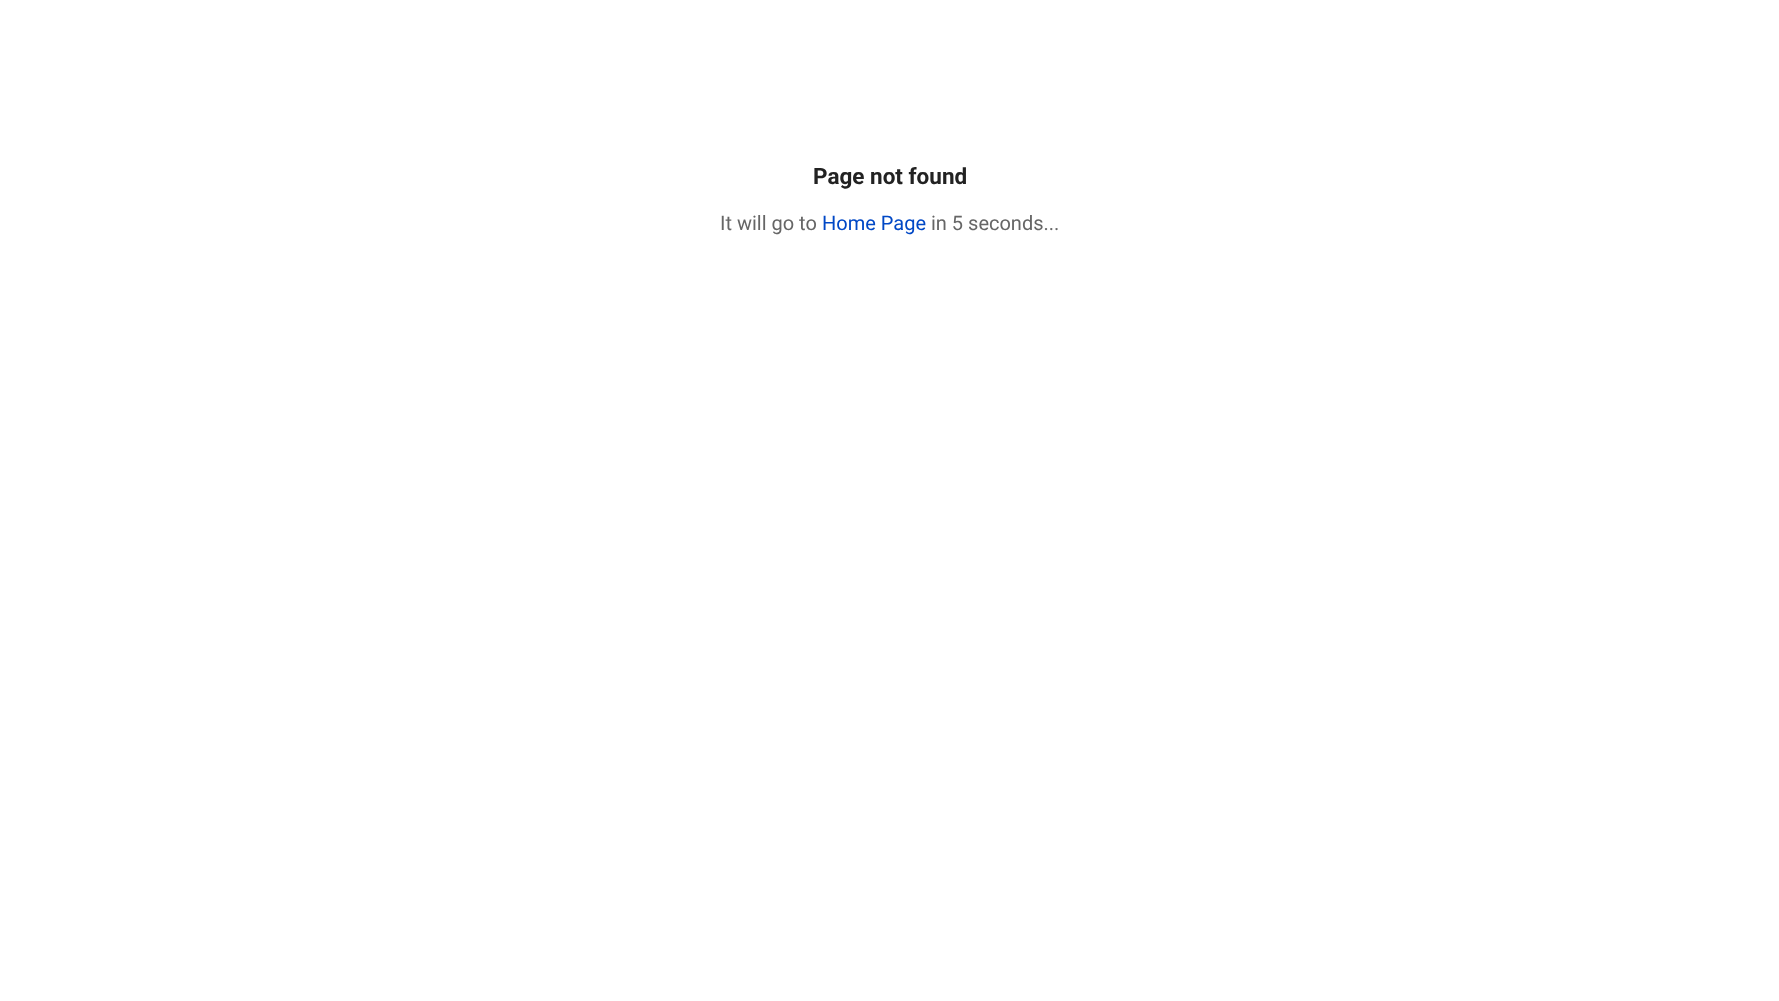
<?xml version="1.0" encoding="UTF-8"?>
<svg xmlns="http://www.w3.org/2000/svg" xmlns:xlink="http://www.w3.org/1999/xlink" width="1779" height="1001">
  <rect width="100%" height="100%" fill="#ffffff" />
  <text x="813" y="184" style="font-family: Roboto; font-size: 22.5px; font-weight: bold; fill: #222222">Page not found</text>
  <text x="720" y="230" style="font-family: Roboto; font-size: 20px; fill: #666666">It will go to</text>
  <text x="822" y="230" style="font-family: Roboto; font-size: 20px; fill: #0048c6">Home Page</text>
  <text x="931" y="230" style="font-family: Roboto; font-size: 20px; fill: #666666">in 5 seconds...</text>
</svg>
